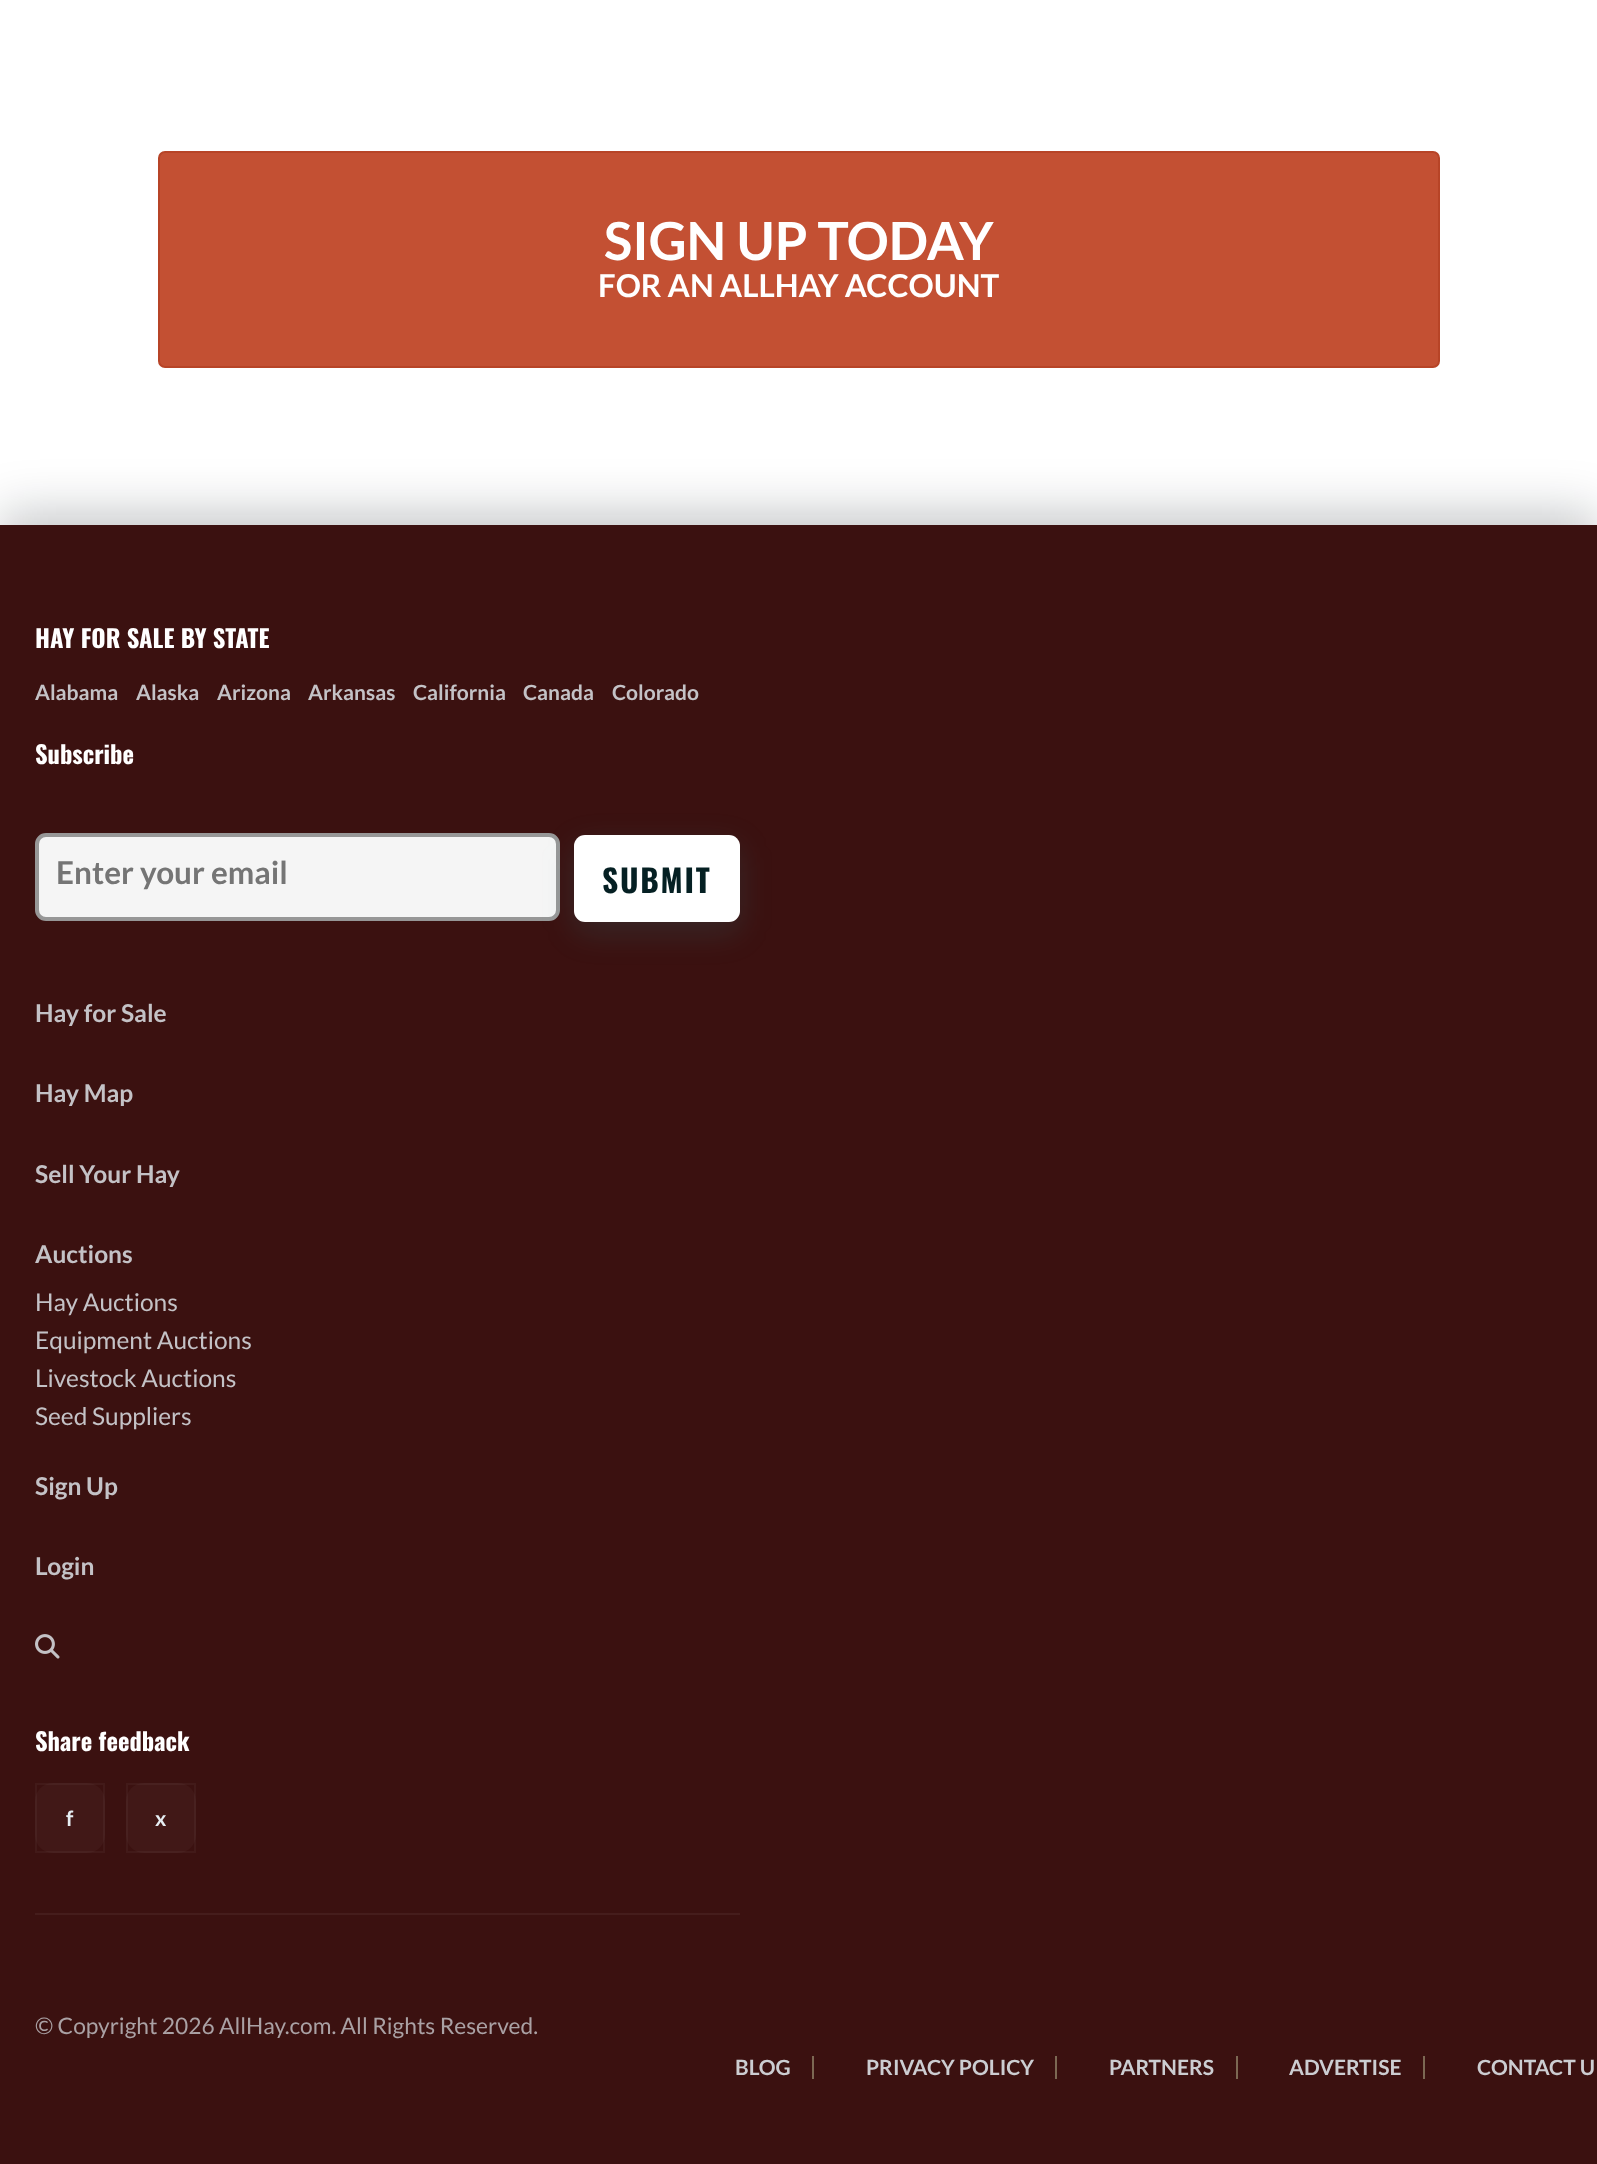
<?xml version="1.0" encoding="UTF-8"?>
<svg xmlns="http://www.w3.org/2000/svg" xmlns:xlink="http://www.w3.org/1999/xlink" width="1597" height="2164">
  <rect width="100%" height="100%" fill="#ffffff" />
  <rect x="159" y="152" width="1280" height="215" rx="6" fill="#c35033" stroke="#b74427" stroke-width="2" />
  <rect y="515" width="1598" height="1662" fill="#030a12" fill-opacity="0.25" filter="blur(26px)" />
  <rect y="525" width="1597" height="1639" fill="#3b1110" />
  <rect x="35" y="1913" width="705" height="2" fill="#451d1c" />
  <rect x="37" y="835" width="521" height="84" rx="9" fill="#f5f5f5" stroke="#979797" stroke-width="4" />
  <rect x="574" y="845" width="166" height="88" rx="11" fill="#23b0b9" fill-opacity="0.14" filter="blur(16px)" />
  <rect x="574" y="835" width="166" height="87" rx="11" fill="#ffffff" />
  <image x="35" y="1634" width="25" height="25" xlink:href="image1.png" />
  <rect x="35" y="1783" width="70" height="70" rx="18" fill="#411817" />
  <rect x="36" y="1784" width="68" height="68" fill="none" stroke="#ffffff" stroke-opacity="0.04" stroke-width="2" />
  <rect x="126" y="1783" width="70" height="70" rx="18" fill="#411817" />
  <rect x="127" y="1784" width="68" height="68" fill="none" stroke="#ffffff" stroke-opacity="0.04" stroke-width="2" />
  <rect x="812" y="2056" width="2" height="23" fill="#7c6853" />
  <rect x="1055" y="2056" width="2" height="23" fill="#7c6853" />
  <rect x="1236" y="2056" width="2" height="23" fill="#7c6853" />
  <rect x="1423" y="2056" width="2" height="23" fill="#7c6853" />
  <text x="604" y="260" style="font-family: Lato; font-size: 52.5px; font-weight: bold; fill: #ffffff">SIGN UP TODAY</text>
  <text x="598" y="297" style="font-family: Lato; font-size: 31.5px; font-weight: bold; fill: #ffffff">FOR AN ALLHAY ACCOUNT</text>
  <text x="35" y="648" style="font-family: Oswald; font-size: 24.5px; font-weight: bold; fill: #ffffff">HAY FOR SALE BY STATE</text>
  <text x="35" y="700" style="font-family: Lato; font-size: 21px; font-weight: bold; fill: #c4c2c6">Alabama</text>
  <text x="136" y="700" style="font-family: Lato; font-size: 21px; font-weight: bold; fill: #c4c2c6">Alaska</text>
  <text x="217" y="700" style="font-family: Lato; font-size: 21px; font-weight: bold; fill: #c4c2c6">Arizona</text>
  <text x="308" y="700" style="font-family: Lato; font-size: 21px; font-weight: bold; fill: #c4c2c6">Arkansas</text>
  <text x="413" y="700" style="font-family: Lato; font-size: 21px; font-weight: bold; fill: #c4c2c6">California</text>
  <text x="523" y="700" style="font-family: Lato; font-size: 21px; font-weight: bold; fill: #c4c2c6">Canada</text>
  <text x="612" y="700" style="font-family: Lato; font-size: 21px; font-weight: bold; fill: #c4c2c6">Colorado</text>
  <text x="35" y="764" style="font-family: Oswald; font-size: 24.5px; font-weight: bold; fill: #ffffff">Subscribe</text>
  <text x="56" y="884" style="font-family: Lato; font-size: 31.5px; font-weight: bold; fill: #757575">Enter your email</text>
  <text x="602" y="893" style="font-family: Oswald; font-size: 31.5px; font-weight: bold; letter-spacing: 1.75px; fill: #052023">SUBMIT</text>
  <text x="35" y="1022" style="font-family: Lato; font-size: 24.5px; font-weight: bold; fill: #c4c2c6">Hay for Sale</text>
  <text x="35" y="1102" style="font-family: Lato; font-size: 24.5px; font-weight: bold; fill: #c4c2c6">Hay Map</text>
  <text x="35" y="1183" style="font-family: Lato; font-size: 24.5px; font-weight: bold; fill: #c4c2c6">Sell Your Hay</text>
  <text x="35" y="1263" style="font-family: Lato; font-size: 24.5px; font-weight: bold; fill: #c4c2c6">Auctions</text>
  <text x="35" y="1311" style="font-family: Lato; font-size: 24.5px; fill: #c4c2c6">Hay Auctions</text>
  <text x="35" y="1349" style="font-family: Lato; font-size: 24.5px; fill: #c4c2c6">Equipment Auctions</text>
  <text x="35" y="1387" style="font-family: Lato; font-size: 24.5px; fill: #c4c2c6">Livestock Auctions</text>
  <text x="35" y="1425" style="font-family: Lato; font-size: 24.5px; fill: #c4c2c6">Seed Suppliers</text>
  <text x="35" y="1495" style="font-family: Lato; font-size: 24.5px; font-weight: bold; fill: #c4c2c6">Sign Up</text>
  <text x="35" y="1575" style="font-family: Lato; font-size: 24.5px; font-weight: bold; fill: #c4c2c6">Login</text>
  <text x="35" y="1751" style="font-family: Oswald; font-size: 24.5px; font-weight: bold; fill: #ffffff">Share feedback</text>
  <text x="66" y="1826" style="font-family: Lato; font-size: 21px; font-weight: bold; fill: #e6eef3">f</text>
  <text x="155" y="1826" style="font-family: Lato; font-size: 21px; font-weight: bold; fill: #e6eef3">x</text>
  <text x="35" y="2034" style="font-family: Lato; font-size: 22.75px; fill: #aaa1a4">© Copyright 2026 AllHay.com. All Rights Reserved.</text>
  <text x="735" y="2075" style="font-family: Lato; font-size: 21px; font-weight: bold; fill: #cccdd1">BLOG</text>
  <text x="866" y="2075" style="font-family: Lato; font-size: 21px; font-weight: bold; fill: #cccdd1">PRIVACY POLICY</text>
  <text x="1109" y="2075" style="font-family: Lato; font-size: 21px; font-weight: bold; fill: #cccdd1">PARTNERS</text>
  <text x="1289" y="2075" style="font-family: Lato; font-size: 21px; font-weight: bold; fill: #cccdd1">ADVERTISE</text>
  <text x="1477" y="2075" style="font-family: Lato; font-size: 21px; font-weight: bold; fill: #cccdd1">CONTACT U</text>
</svg>
